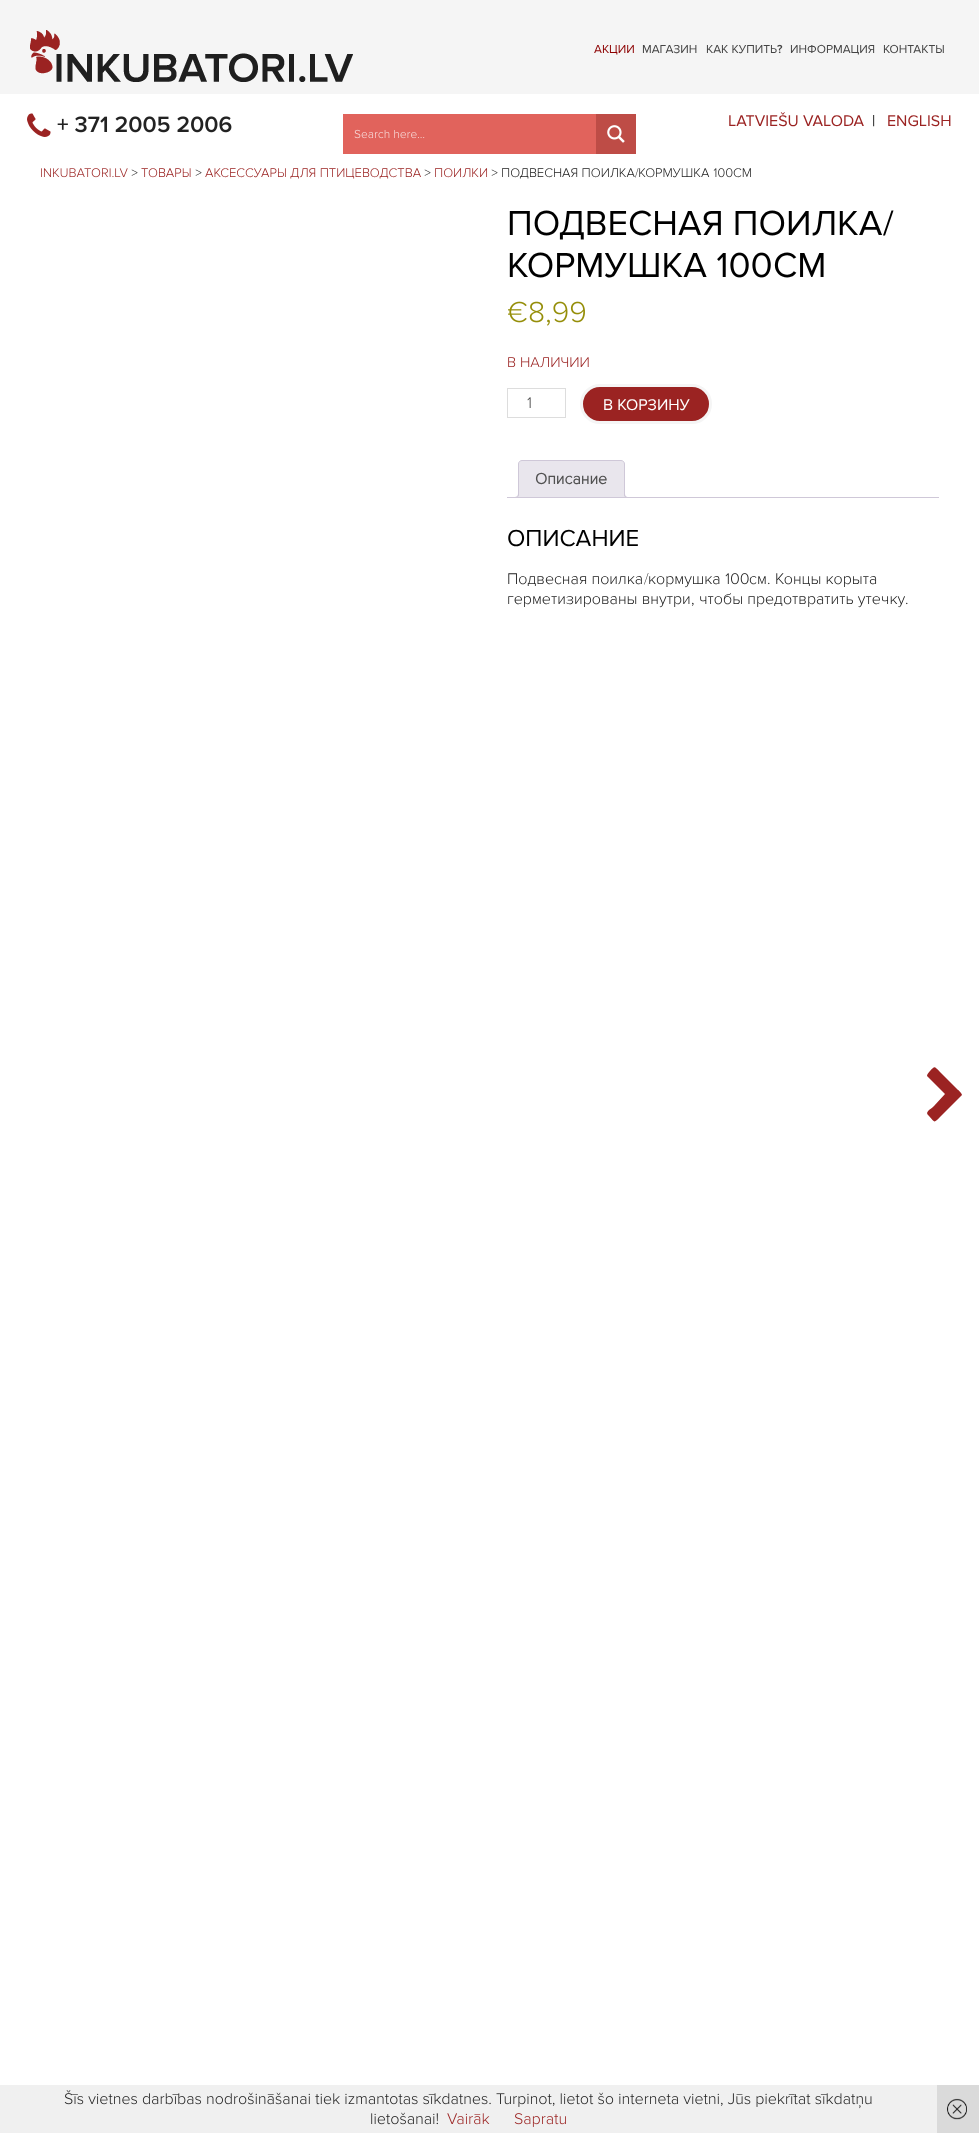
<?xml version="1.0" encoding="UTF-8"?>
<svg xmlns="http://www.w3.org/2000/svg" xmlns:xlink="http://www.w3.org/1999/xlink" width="979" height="2133">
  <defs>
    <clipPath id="clip1"><rect x="507" y="460" width="432" height="38" /></clipPath>
  </defs>
  <rect width="100%" height="100%" fill="#ffffff" />
  <rect width="979" height="94" fill="#f5f5f5" />
  <image x="30" y="30" width="323" height="52" xlink:href="image1.png" />
  <image x="777" y="44" width="6" height="10" xlink:href="image2.png" />
  <image x="27" y="113" width="24" height="24" xlink:href="image3.png" />
  <image x="57" y="116" width="175" height="17" xlink:href="image4.png" />
  <rect x="343" y="114" width="253" height="40" fill="#e1635c" />
  <image x="354" y="129" width="71" height="10" xlink:href="image5.png" />
  <rect x="596" y="114" width="40" height="40" fill="#be4c46" />
  <image x="607" y="125" width="18" height="18" xlink:href="image6.png" />
  <image x="41" y="168" width="87" height="10" xlink:href="image7.png" />
  <image x="131" y="169" width="7" height="7" xlink:href="image8.png" />
  <image x="195" y="169" width="7" height="7" xlink:href="image8.png" />
  <image x="424" y="169" width="7" height="7" xlink:href="image8.png" />
  <image x="491" y="169" width="7" height="7" xlink:href="image8.png" />
  <path d="M 635.5 177.5 l 3 -9.5 h -0.5 l -3 9.5 z" fill="#222222" />
  <image x="713" y="168" width="20" height="10" xlink:href="image9.png" />
  <path d="M 885 235.5 l 8.5 -25 h -2 l -8.5 25 z" fill="#000000" />
  <image x="717" y="252" width="54" height="26" xlink:href="image10.png" />
  <image x="508" y="301" width="19" height="22" xlink:href="image11.png" />
  <image x="529" y="301" width="56" height="25" xlink:href="image12.png" />
  <rect x="507.5" y="388.5" width="58" height="29" fill="none" stroke="#dddddd" />
  <image x="527" y="397" width="4" height="11" xlink:href="image13.png" />
  <rect x="581.5" y="385.5" width="129" height="37" rx="18.5" fill="#9b2322" stroke="#f5f5f5" stroke-width="3" />
  <path d="M 522 460.5 h 99 c 2 0 3.5 1.5 3.5 3.5 v 33.5 h -106 v -33.5 c 0 -2 1.5 -3.5 3.5 -3.5 z" fill="#e9e6ed" stroke="#cfc8d8" />
  <g clip-path="url(#clip1)">
    <path d="M 516 498 v 2 c 3.5 0 5 -1.5 5 -5 h -2 c -0.5 1.5 -1.5 2.5 -3 3 z" fill="#e9e6ed" />
  </g>
  <path d="M 514 493 h 5 c 0 3.5 -1.5 5 -5 5 z m 0 0 h 4 c 0 3 -1 4 -4 4 z" fill="#cfc8d8" fill-rule="evenodd" />
  <g clip-path="url(#clip1)">
    <path d="M 622 495 c 0 3.5 1.5 5 5 5 v -2 c -1.5 -0.5 -2.5 -1.5 -3 -3 z" fill="#e9e6ed" />
  </g>
  <path d="M 624 493 h 5 v 5 c -2.5 0 -5 -1 -5 -4 z m 1 0 h 4 v 4 c -2 0 -4 -0.5 -4 -3 z" fill="#cfc8d8" fill-rule="evenodd" />
  <rect x="507" y="497" width="432" height="1" fill="#cfc8d8" />
  <path d="M 644.5 584.5 l 4 -11.5 h -0.5 l -4 11.5 z" fill="#222222" />
  <image x="725" y="573" width="24" height="12" xlink:href="image14.png" />
  <image x="768" y="582" width="2" height="3" xlink:href="image15.png" />
  <image x="692" y="602" width="2" height="4" xlink:href="image16.png" />
  <image x="906" y="602" width="2" height="3" xlink:href="image15.png" />
  <path d="M 961 1096 l -21 21 c -6 6 -5 6 -11 -1 c -5 -4 1 -6 5 -10 l 11 -12 l -18 -18 c 0 -2 2 -4 3 -5 c 5 -5 4 -5 10 1 l 17 17 c 0 0 5 4 5 6 z" fill="#9b2322" />
  <rect y="2085" width="937" height="48" fill="#f0f0f0" />
  <image x="64" y="2090" width="808" height="19" xlink:href="image17.png" />
  <image x="371" y="2112" width="67" height="13" xlink:href="image18.png" />
  <image x="447" y="2113" width="43" height="12" xlink:href="image19.png" />
  <image x="514" y="2113" width="52" height="14" xlink:href="image20.png" />
  <rect x="937" y="2085" width="42" height="48" fill="#dadada" />
  <image x="947" y="2098" width="20" height="22" xlink:href="image21.png" />
  <text x="594" y="53" style="font-family: Proxima Nova; font-size: 12px; fill: #8c0000">АКЦИИ</text>
  <text x="642" y="53" style="font-family: Proxima Nova; font-size: 12px; fill: #444444">МАГАЗИН</text>
  <text x="706" y="53" style="font-family: Proxima Nova; font-size: 12px; fill: #444444">КАК КУПИТЬ</text>
  <text x="790" y="53" style="font-family: Proxima Nova; font-size: 12px; fill: #444444">ИНФОРМАЦИЯ</text>
  <text x="883" y="53" style="font-family: Proxima Nova; font-size: 12px; fill: #444444">КОНТАКТЫ</text>
  <text x="728" y="126" style="font-family: Proxima Nova; font-size: 16px; fill: #9b2322">LATVIEŠU VALODA</text>
  <text x="872" y="126" style="font-family: Proxima Nova; font-size: 16px; fill: #000000">|</text>
  <text x="887" y="126" style="font-family: Proxima Nova; font-size: 16px; fill: #9b2322">ENGLISH</text>
  <text x="141" y="177" style="font-family: Proxima Nova; font-size: 13px; font-weight: 300; fill: #9b2322">ТОВАРЫ</text>
  <text x="205" y="177" style="font-family: Proxima Nova; font-size: 13px; font-weight: 300; fill: #9b2322">АКСЕССУАРЫ ДЛЯ ПТИЦЕВОДСТВА</text>
  <text x="434" y="177" style="font-family: Proxima Nova; font-size: 13px; font-weight: 300; fill: #9b2322">ПОИЛКИ</text>
  <text x="501" y="177" style="font-family: Proxima Nova; font-size: 13px; font-weight: 300; fill: #222222">ПОДВЕСНАЯ ПОИЛКА КОРМУШКА</text>
  <text x="733" y="177" style="font-family: Proxima Nova; font-size: 13px; font-weight: 300; fill: #222222">СМ</text>
  <text x="507" y="235" style="font-family: Proxima Nova; font-size: 36px; fill: #000000">ПОДВЕСНАЯ ПОИЛКА</text>
  <text x="507" y="277" style="font-family: Proxima Nova; font-size: 36px; fill: #000000">КОРМУШКА</text>
  <text x="773" y="277" style="font-family: Proxima Nova; font-size: 36px; fill: #000000">СМ</text>
  <text x="507" y="367" style="font-family: Proxima Nova; font-size: 14.75px; font-weight: 300; fill: #9b2322">В НАЛИЧИИ</text>
  <text x="603" y="410" style="font-family: Proxima Nova; font-size: 16px; fill: #ffffff">В КОРЗИНУ</text>
  <text x="535" y="484" style="font-family: Proxima Nova; font-size: 16px; font-weight: bold; fill: #515151">Описание</text>
  <text x="507" y="546" style="font-family: Proxima Nova; font-size: 24px; fill: #000000">ОПИСАНИЕ</text>
  <text x="507" y="584" style="font-family: Proxima Nova; font-size: 16px; font-weight: 300; fill: #222222">Подвесная поилка</text>
  <text x="648" y="584" style="font-family: Proxima Nova; font-size: 16px; font-weight: 300; fill: #222222">кормушка</text>
  <text x="749" y="584" style="font-family: Proxima Nova; font-size: 16px; font-weight: 300; fill: #222222">см</text>
  <text x="775" y="584" style="font-family: Proxima Nova; font-size: 16px; font-weight: 300; fill: #222222">Концы корыта</text>
  <text x="507" y="604" style="font-family: Proxima Nova; font-size: 16px; font-weight: 300; fill: #222222">герметизированы внутри</text>
  <text x="699" y="604" style="font-family: Proxima Nova; font-size: 16px; font-weight: 300; fill: #222222">чтобы предотвратить утечку</text>
</svg>
